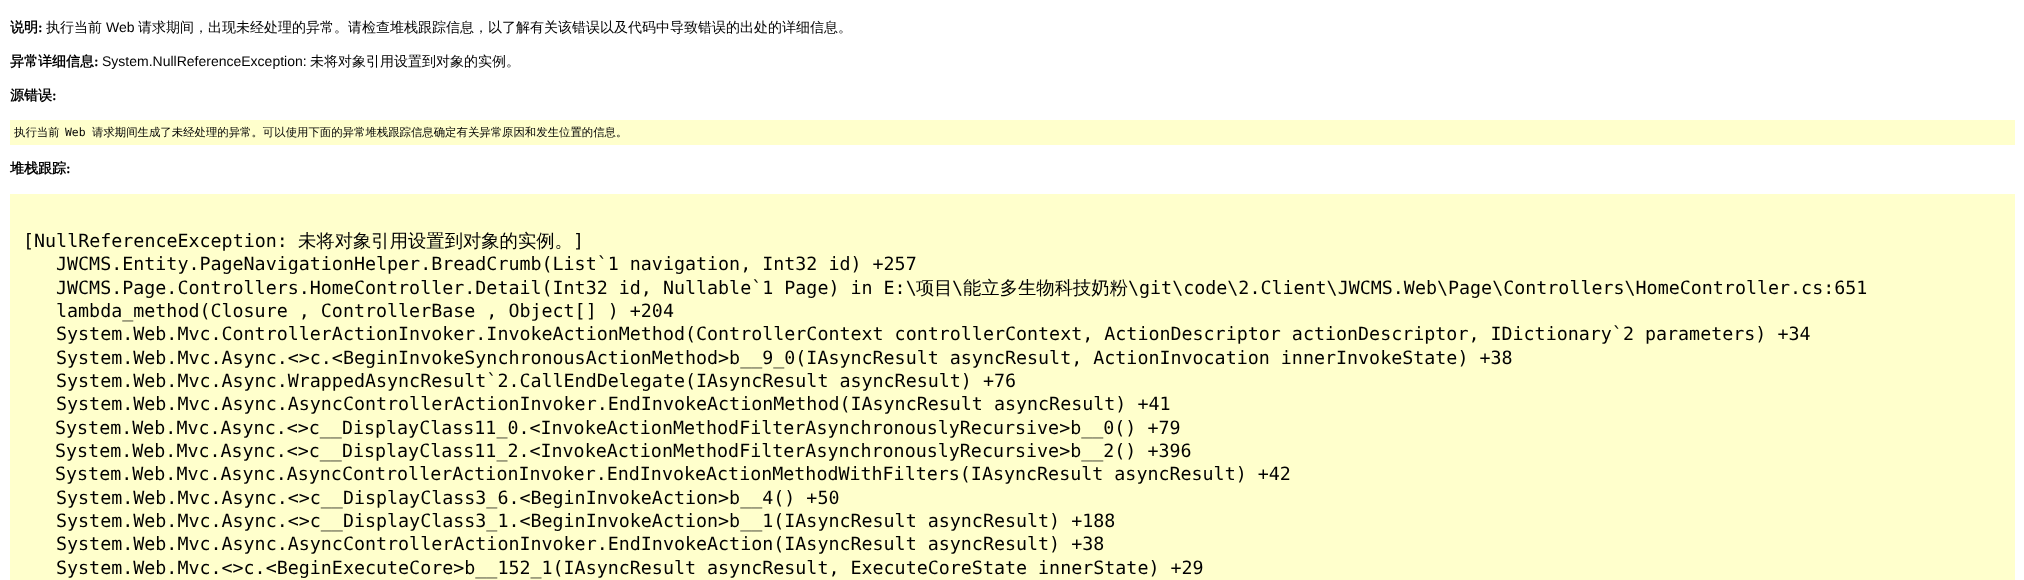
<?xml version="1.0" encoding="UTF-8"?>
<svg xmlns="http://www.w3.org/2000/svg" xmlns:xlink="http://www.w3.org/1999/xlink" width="2024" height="580">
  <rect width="100%" height="100%" fill="#ffffff" />
  <rect x="10" y="120" width="2005" height="25" fill="#ffffcc" />
  <rect x="10" y="194" width="2005" height="386" fill="#ffffcc" />
  <text x="10" y="32" style="font-family: WenQuanYi Zen Hei; font-size: 14px; font-weight: bold; fill: #000000">说明</text>
  <text x="38" y="32" style="font-family: Liberation Serif; font-size: 14px; font-weight: bold; fill: #000000">:</text>
  <text x="46" y="32" style="font-family: WenQuanYi Zen Hei; font-size: 14px; font-weight: 500; fill: #000000">执行当前</text>
  <text x="106" y="32" style="font-family: Liberation Sans; font-size: 14px; fill: #000000">Web</text>
  <text x="138" y="32" style="font-family: WenQuanYi Zen Hei; font-size: 14px; font-weight: 500; fill: #000000">请求期间，出现未经处理的异常。请检查堆栈跟踪信息，以了解有关该错误以及代码中导致错误的出处的详细信息。</text>
  <text x="10" y="66" style="font-family: WenQuanYi Zen Hei; font-size: 14px; font-weight: bold; fill: #000000">异常详细信息</text>
  <text x="94" y="66" style="font-family: Liberation Serif; font-size: 14px; font-weight: bold; fill: #000000">:</text>
  <text x="102" y="66" style="font-family: Liberation Sans; font-size: 14px; fill: #000000">System.NullReferenceException:</text>
  <text x="310" y="66" style="font-family: WenQuanYi Zen Hei; font-size: 14px; font-weight: 500; fill: #000000">未将对象引用设置到对象的实例。</text>
  <text x="10" y="100" style="font-family: WenQuanYi Zen Hei; font-size: 14px; font-weight: bold; fill: #000000">源错误</text>
  <text x="52" y="100" style="font-family: Liberation Serif; font-size: 14px; font-weight: bold; fill: #000000">:</text>
  <text x="14" y="136" style="font-family: WenQuanYi Zen Hei; font-size: 11.4px; font-weight: 500; fill: #000000">执行当前</text>
  <text x="65" y="136" style="font-family: DejaVu Sans Mono; font-size: 11.4px; fill: #000000">Web</text>
  <text x="92" y="136" style="font-family: WenQuanYi Zen Hei; font-size: 11.4px; font-weight: 500; fill: #000000">请求期间生成了未经处理的异常。可以使用下面的异常堆栈跟踪信息确定有关异常原因和发生位置的信息。</text>
  <text x="10" y="173" style="font-family: WenQuanYi Zen Hei; font-size: 14px; font-weight: bold; fill: #000000">堆栈跟踪</text>
  <text x="66" y="173" style="font-family: Liberation Serif; font-size: 14px; font-weight: bold; fill: #000000">:</text>
  <text x="23" y="247" style="font-family: DejaVu Sans Mono; font-size: 18.33px; fill: #000000">[NullReferenceException:</text>
  <text x="298" y="247" style="font-family: WenQuanYi Zen Hei; font-size: 18.33px; font-weight: 500; fill: #000000">未将对象引用设置到对象的实例。</text>
  <text x="573" y="247" style="font-family: DejaVu Sans Mono; font-size: 18.33px; fill: #000000">]</text>
  <text x="56" y="270" style="font-family: DejaVu Sans Mono; font-size: 18.33px; fill: #000000">JWCMS.Entity.PageNavigationHelper.BreadCrumb(List`1 navigation, Int32 id) +257</text>
  <text x="56" y="294" style="font-family: DejaVu Sans Mono; font-size: 18.33px; fill: #000000">JWCMS.Page.Controllers.HomeController.Detail(Int32 id, Nullable`1 Page) in E:\</text>
  <text x="916" y="294" style="font-family: WenQuanYi Zen Hei; font-size: 18.33px; font-weight: 500; fill: #000000">项目</text>
  <text x="952" y="294" style="font-family: DejaVu Sans Mono; font-size: 18.33px; fill: #000000">\</text>
  <text x="963" y="294" style="font-family: WenQuanYi Zen Hei; font-size: 18.33px; font-weight: 500; fill: #000000">能立多生物科技奶粉</text>
  <text x="1128" y="294" style="font-family: DejaVu Sans Mono; font-size: 18.33px; fill: #000000">\git\code\2.Client\JWCMS.Web\Page\Controllers\HomeController.cs:651</text>
  <text x="56" y="317" style="font-family: DejaVu Sans Mono; font-size: 18.33px; fill: #000000">lambda_method(Closure , ControllerBase , Object[] ) +204</text>
  <text x="56" y="340" style="font-family: DejaVu Sans Mono; font-size: 18.33px; fill: #000000">System.Web.Mvc.ControllerActionInvoker.InvokeActionMethod(ControllerContext controllerContext, ActionDescriptor actionDescriptor, IDictionary`2 parameters) +34</text>
  <text x="56" y="364" style="font-family: DejaVu Sans Mono; font-size: 18.33px; fill: #000000">System.Web.Mvc.Async.&lt;&gt;c.&lt;BeginInvokeSynchronousActionMethod&gt;b__9_0(IAsyncResult asyncResult, ActionInvocation innerInvokeState) +38</text>
  <text x="56" y="387" style="font-family: DejaVu Sans Mono; font-size: 18.33px; fill: #000000">System.Web.Mvc.Async.WrappedAsyncResult`2.CallEndDelegate(IAsyncResult asyncResult) +76</text>
  <text x="56" y="410" style="font-family: DejaVu Sans Mono; font-size: 18.33px; fill: #000000">System.Web.Mvc.Async.AsyncControllerActionInvoker.EndInvokeActionMethod(IAsyncResult asyncResult) +41</text>
  <text x="55" y="434" style="font-family: DejaVu Sans Mono; font-size: 18.33px; fill: #000000">System.Web.Mvc.Async.&lt;&gt;c__DisplayClass11_0.&lt;InvokeActionMethodFilterAsynchronouslyRecursive&gt;b__0() +79</text>
  <text x="55" y="457" style="font-family: DejaVu Sans Mono; font-size: 18.33px; fill: #000000">System.Web.Mvc.Async.&lt;&gt;c__DisplayClass11_2.&lt;InvokeActionMethodFilterAsynchronouslyRecursive&gt;b__2() +396</text>
  <text x="55" y="480" style="font-family: DejaVu Sans Mono; font-size: 18.33px; fill: #000000">System.Web.Mvc.Async.AsyncControllerActionInvoker.EndInvokeActionMethodWithFilters(IAsyncResult asyncResult) +42</text>
  <text x="56" y="504" style="font-family: DejaVu Sans Mono; font-size: 18.33px; fill: #000000">System.Web.Mvc.Async.&lt;&gt;c__DisplayClass3_6.&lt;BeginInvokeAction&gt;b__4() +50</text>
  <text x="56" y="527" style="font-family: DejaVu Sans Mono; font-size: 18.33px; fill: #000000">System.Web.Mvc.Async.&lt;&gt;c__DisplayClass3_1.&lt;BeginInvokeAction&gt;b__1(IAsyncResult asyncResult) +188</text>
  <text x="56" y="550" style="font-family: DejaVu Sans Mono; font-size: 18.33px; fill: #000000">System.Web.Mvc.Async.AsyncControllerActionInvoker.EndInvokeAction(IAsyncResult asyncResult) +38</text>
  <text x="56" y="574" style="font-family: DejaVu Sans Mono; font-size: 18.33px; fill: #000000">System.Web.Mvc.&lt;&gt;c.&lt;BeginExecuteCore&gt;b__152_1(IAsyncResult asyncResult, ExecuteCoreState innerState) +29</text>
</svg>
